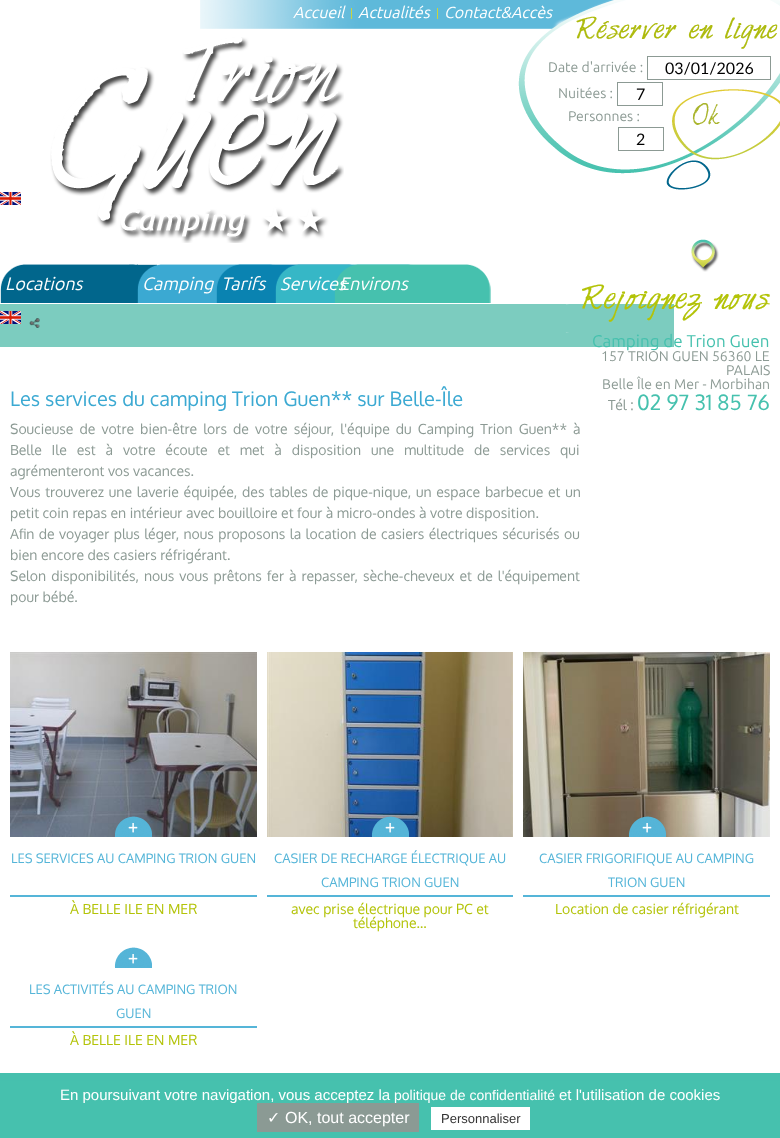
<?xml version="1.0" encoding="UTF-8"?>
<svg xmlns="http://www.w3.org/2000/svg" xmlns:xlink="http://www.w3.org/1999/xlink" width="780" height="1138">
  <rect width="100%" height="100%" fill="#ffffff" />
  <image x="200" y="0" width="426" height="29" xlink:href="image1.png" />
  <rect x="351" y="8" width="1" height="11" fill="#c8d440" />
  <rect x="437" y="8" width="1" height="11" fill="#c8d440" />
  <image x="50" y="37" width="294" height="206" xlink:href="image2.png" />
  <image x="0" y="192" width="21" height="13" xlink:href="image6.png" />
  <image x="0" y="264" width="157" height="39" xlink:href="image7.png" />
  <image x="137" y="264" width="138" height="39" xlink:href="image8.png" />
  <image x="216" y="264" width="138" height="39" xlink:href="image9.png" />
  <image x="275" y="264" width="138" height="39" xlink:href="image10.png" />
  <image x="334" y="264" width="157" height="39" xlink:href="image11.png" />
  <image x="0" y="304" width="674" height="43" xlink:href="image12.png" />
  <image x="0" y="311" width="21" height="13" xlink:href="image6.png" />
  <image x="29" y="318" width="11" height="10" xlink:href="image13.png" />
  <image x="691" y="239" width="28" height="33" xlink:href="image14.png" />
  <image x="582" y="284" width="188" height="38" xlink:href="image15.png" />
  <image x="10" y="652" width="247" height="185" xlink:href="image16.png" />
  <image x="115" y="816" width="37" height="21" xlink:href="image17.png" />
  <rect x="10" y="895" width="247" height="2" fill="#55b5d8" />
  <image x="267" y="652" width="246" height="185" xlink:href="image18.png" />
  <image x="371" y="816" width="38" height="21" xlink:href="image19.png" />
  <rect x="267" y="895" width="246" height="2" fill="#55b5d8" />
  <image x="523" y="652" width="247" height="185" xlink:href="image20.png" />
  <image x="628" y="816" width="38" height="21" xlink:href="image21.png" />
  <rect x="523" y="895" width="247" height="2" fill="#55b5d8" />
  <image x="114" y="947" width="38" height="21" xlink:href="image22.png" />
  <rect x="10" y="1026" width="247" height="2" fill="#55b5d8" />
  <rect y="1073" width="780" height="8" fill="#46c0ae" />
  <rect y="1081" width="780" height="57" fill="#46c1ae" />
  <rect x="431" y="1107" width="99" height="23" fill="#ffffff" />
  <text x="293" y="18" style="font-family: Ubuntu; font-size: 16px; font-style: italic; fill: #ffffff">Accueil</text>
  <text x="358" y="18" style="font-family: Ubuntu; font-size: 16px; font-style: italic; fill: #ffffff">Actualités</text>
  <text x="444" y="18" style="font-family: Ubuntu; font-size: 16px; font-style: italic; fill: #ffffff">Contact&amp;Accès</text>
  <image x="518" y="0" width="262" height="190" xlink:href="image3.png" />
  <image x="576" y="16" width="202" height="33" xlink:href="image4.png" />
  <text x="548" y="72" style="font-family: Ubuntu; font-size: 14px; fill: #8c9a94">Date d'arrivée :</text>
  <rect x="647.5" y="56.5" width="123" height="23" fill="none" stroke="#8c9a94" />
  <text x="665" y="74" style="font-family: Lato; font-size: 16px; fill: #000000">03/01/2026</text>
  <text x="558" y="98" style="font-family: Ubuntu; font-size: 14px; fill: #8c9a94">Nuitées :</text>
  <rect x="617.5" y="82.5" width="45" height="23" fill="none" stroke="#8c9a94" />
  <text x="636" y="100" style="font-family: Lato; font-size: 16px; fill: #000000">7</text>
  <text x="568" y="121" style="font-family: Ubuntu; font-size: 14px; fill: #8c9a94">Personnes :</text>
  <rect x="618.5" y="127.5" width="45" height="23" fill="none" stroke="#8c9a94" />
  <text x="636" y="145" style="font-family: Lato; font-size: 16px; fill: #000000">2</text>
  <image x="692" y="103" width="28" height="22" xlink:href="image5.png" />
  <text x="5" y="290" style="font-family: Ubuntu; font-size: 18px; font-style: italic; fill: #ffffff">Locations</text>
  <text x="142" y="290" style="font-family: Ubuntu; font-size: 18px; font-style: italic; fill: #ffffff">Camping</text>
  <text x="221" y="290" style="font-family: Ubuntu; font-size: 18px; font-style: italic; fill: #ffffff">Tarifs</text>
  <text x="280" y="290" style="font-family: Ubuntu; font-size: 18px; font-style: italic; fill: #ffffff">Services</text>
  <text x="339" y="290" style="font-family: Ubuntu; font-size: 18px; font-style: italic; fill: #ffffff">Environs</text>
  <text x="592" y="347" style="font-family: Ubuntu; font-size: 17px; fill: #46c1ae">Camping de Trion Guen</text>
  <text x="601" y="361" style="font-family: Ubuntu; font-size: 14px; fill: #8c9a94">157 TRION GUEN 56360 LE</text>
  <text x="726" y="375" style="font-family: Ubuntu; font-size: 14px; fill: #8c9a94">PALAIS</text>
  <text x="602" y="389" style="font-family: Ubuntu; font-size: 14px; fill: #8c9a94">Belle Île en Mer - Morbihan</text>
  <text x="608" y="410" style="font-family: Oxygen; font-size: 14px; fill: #8c9a94">Tél :</text>
  <text x="637" y="410" style="font-family: Oxygen; font-size: 21px; fill: #46c1ae">02 97 31 85 76</text>
  <text x="10" y="406" style="font-family: Oxygen; font-size: 20px; fill: #3ba9d2">Les services du camping Trion Guen** sur Belle-Île</text>
  <text x="10" y="434" word-spacing="2.6" style="font-family: Oxygen; font-size: 14px; fill: #8c9a94">Soucieuse de votre bien-être lors de votre séjour, l'équipe du Camping Trion Guen** à</text>
  <text x="10" y="455" word-spacing="6.4" style="font-family: Oxygen; font-size: 14px; fill: #8c9a94">Belle Ile est à votre écoute et met à disposition une multitude de services qui</text>
  <text x="10" y="476" style="font-family: Oxygen; font-size: 14px; fill: #8c9a94">agrémenteront vos vacances.</text>
  <text x="10" y="497" word-spacing="1.25" style="font-family: Oxygen; font-size: 14px; fill: #8c9a94">Vous trouverez une laverie équipée, des tables de pique-nique, un espace barbecue et un</text>
  <text x="10" y="518" style="font-family: Oxygen; font-size: 14px; fill: #8c9a94">petit coin repas en intérieur avec bouilloire et four à micro-ondes à votre disposition.</text>
  <text x="10" y="539" word-spacing="0.9" style="font-family: Oxygen; font-size: 14px; fill: #8c9a94">Afin de voyager plus léger, nous proposons la location de casiers électriques sécurisés ou</text>
  <text x="10" y="560" style="font-family: Oxygen; font-size: 14px; fill: #8c9a94">bien encore des casiers réfrigérant.</text>
  <text x="10" y="581" word-spacing="1.5" style="font-family: Oxygen; font-size: 14px; fill: #8c9a94">Selon disponibilités, nous vous prêtons fer à repasser, sèche-cheveux et de l'équipement</text>
  <text x="10" y="602" style="font-family: Oxygen; font-size: 14px; fill: #8c9a94">pour bébé.</text>
  <text x="11" y="863" style="font-family: Oxygen; font-size: 13px; fill: #55b5d8">LES SERVICES AU CAMPING TRION GUEN</text>
  <text x="70" y="914" style="font-family: Oxygen; font-size: 14px; fill: #b3c308">À BELLE ILE EN MER</text>
  <text x="274" y="863" style="font-family: Oxygen; font-size: 13px; fill: #55b5d8">CASIER DE RECHARGE ÉLECTRIQUE AU</text>
  <text x="321" y="887" style="font-family: Oxygen; font-size: 13px; fill: #55b5d8">CAMPING TRION GUEN</text>
  <text x="291" y="914" style="font-family: Oxygen; font-size: 14px; fill: #b3c308">avec prise électrique pour PC et</text>
  <text x="353" y="928" style="font-family: Oxygen; font-size: 14px; fill: #b3c308">téléphone…</text>
  <text x="539" y="863" style="font-family: Oxygen; font-size: 13px; fill: #55b5d8">CASIER FRIGORIFIQUE AU CAMPING</text>
  <text x="608" y="887" style="font-family: Oxygen; font-size: 13px; fill: #55b5d8">TRION GUEN</text>
  <text x="555" y="914" style="font-family: Oxygen; font-size: 14px; fill: #b3c308">Location de casier réfrigérant</text>
  <text x="29" y="994" style="font-family: Oxygen; font-size: 13px; fill: #55b5d8">LES ACTIVITÉS AU CAMPING TRION</text>
  <text x="116" y="1018" style="font-family: Oxygen; font-size: 13px; fill: #55b5d8">GUEN</text>
  <text x="70" y="1045" style="font-family: Oxygen; font-size: 14px; fill: #b3c308">À BELLE ILE EN MER</text>
  <text x="60" y="1100" style="font-family: Liberation Sans; font-size: 15px; fill: #ffffff">En poursuivant votre navigation, vous acceptez la</text>
  <text x="394" y="1100" style="font-family: Liberation Sans; font-size: 14px; fill: #ffffff">politique de confidentialité</text>
  <text x="559" y="1100" style="font-family: Liberation Sans; font-size: 15px; fill: #ffffff">et l'utilisation de cookies</text>
  <rect x="257" y="1103" width="162" height="29" fill="#8b9a94" />
  <text x="267" y="1123" style="font-family: DejaVu Sans; font-size: 16px; fill: #ffffff">✓</text>
  <text x="285" y="1123" style="font-family: Liberation Sans; font-size: 16px; fill: #ffffff">OK, tout accepter</text>
  <text x="441" y="1123" style="font-family: Liberation Sans; font-size: 13px; fill: #333333">Personnaliser</text>
</svg>
